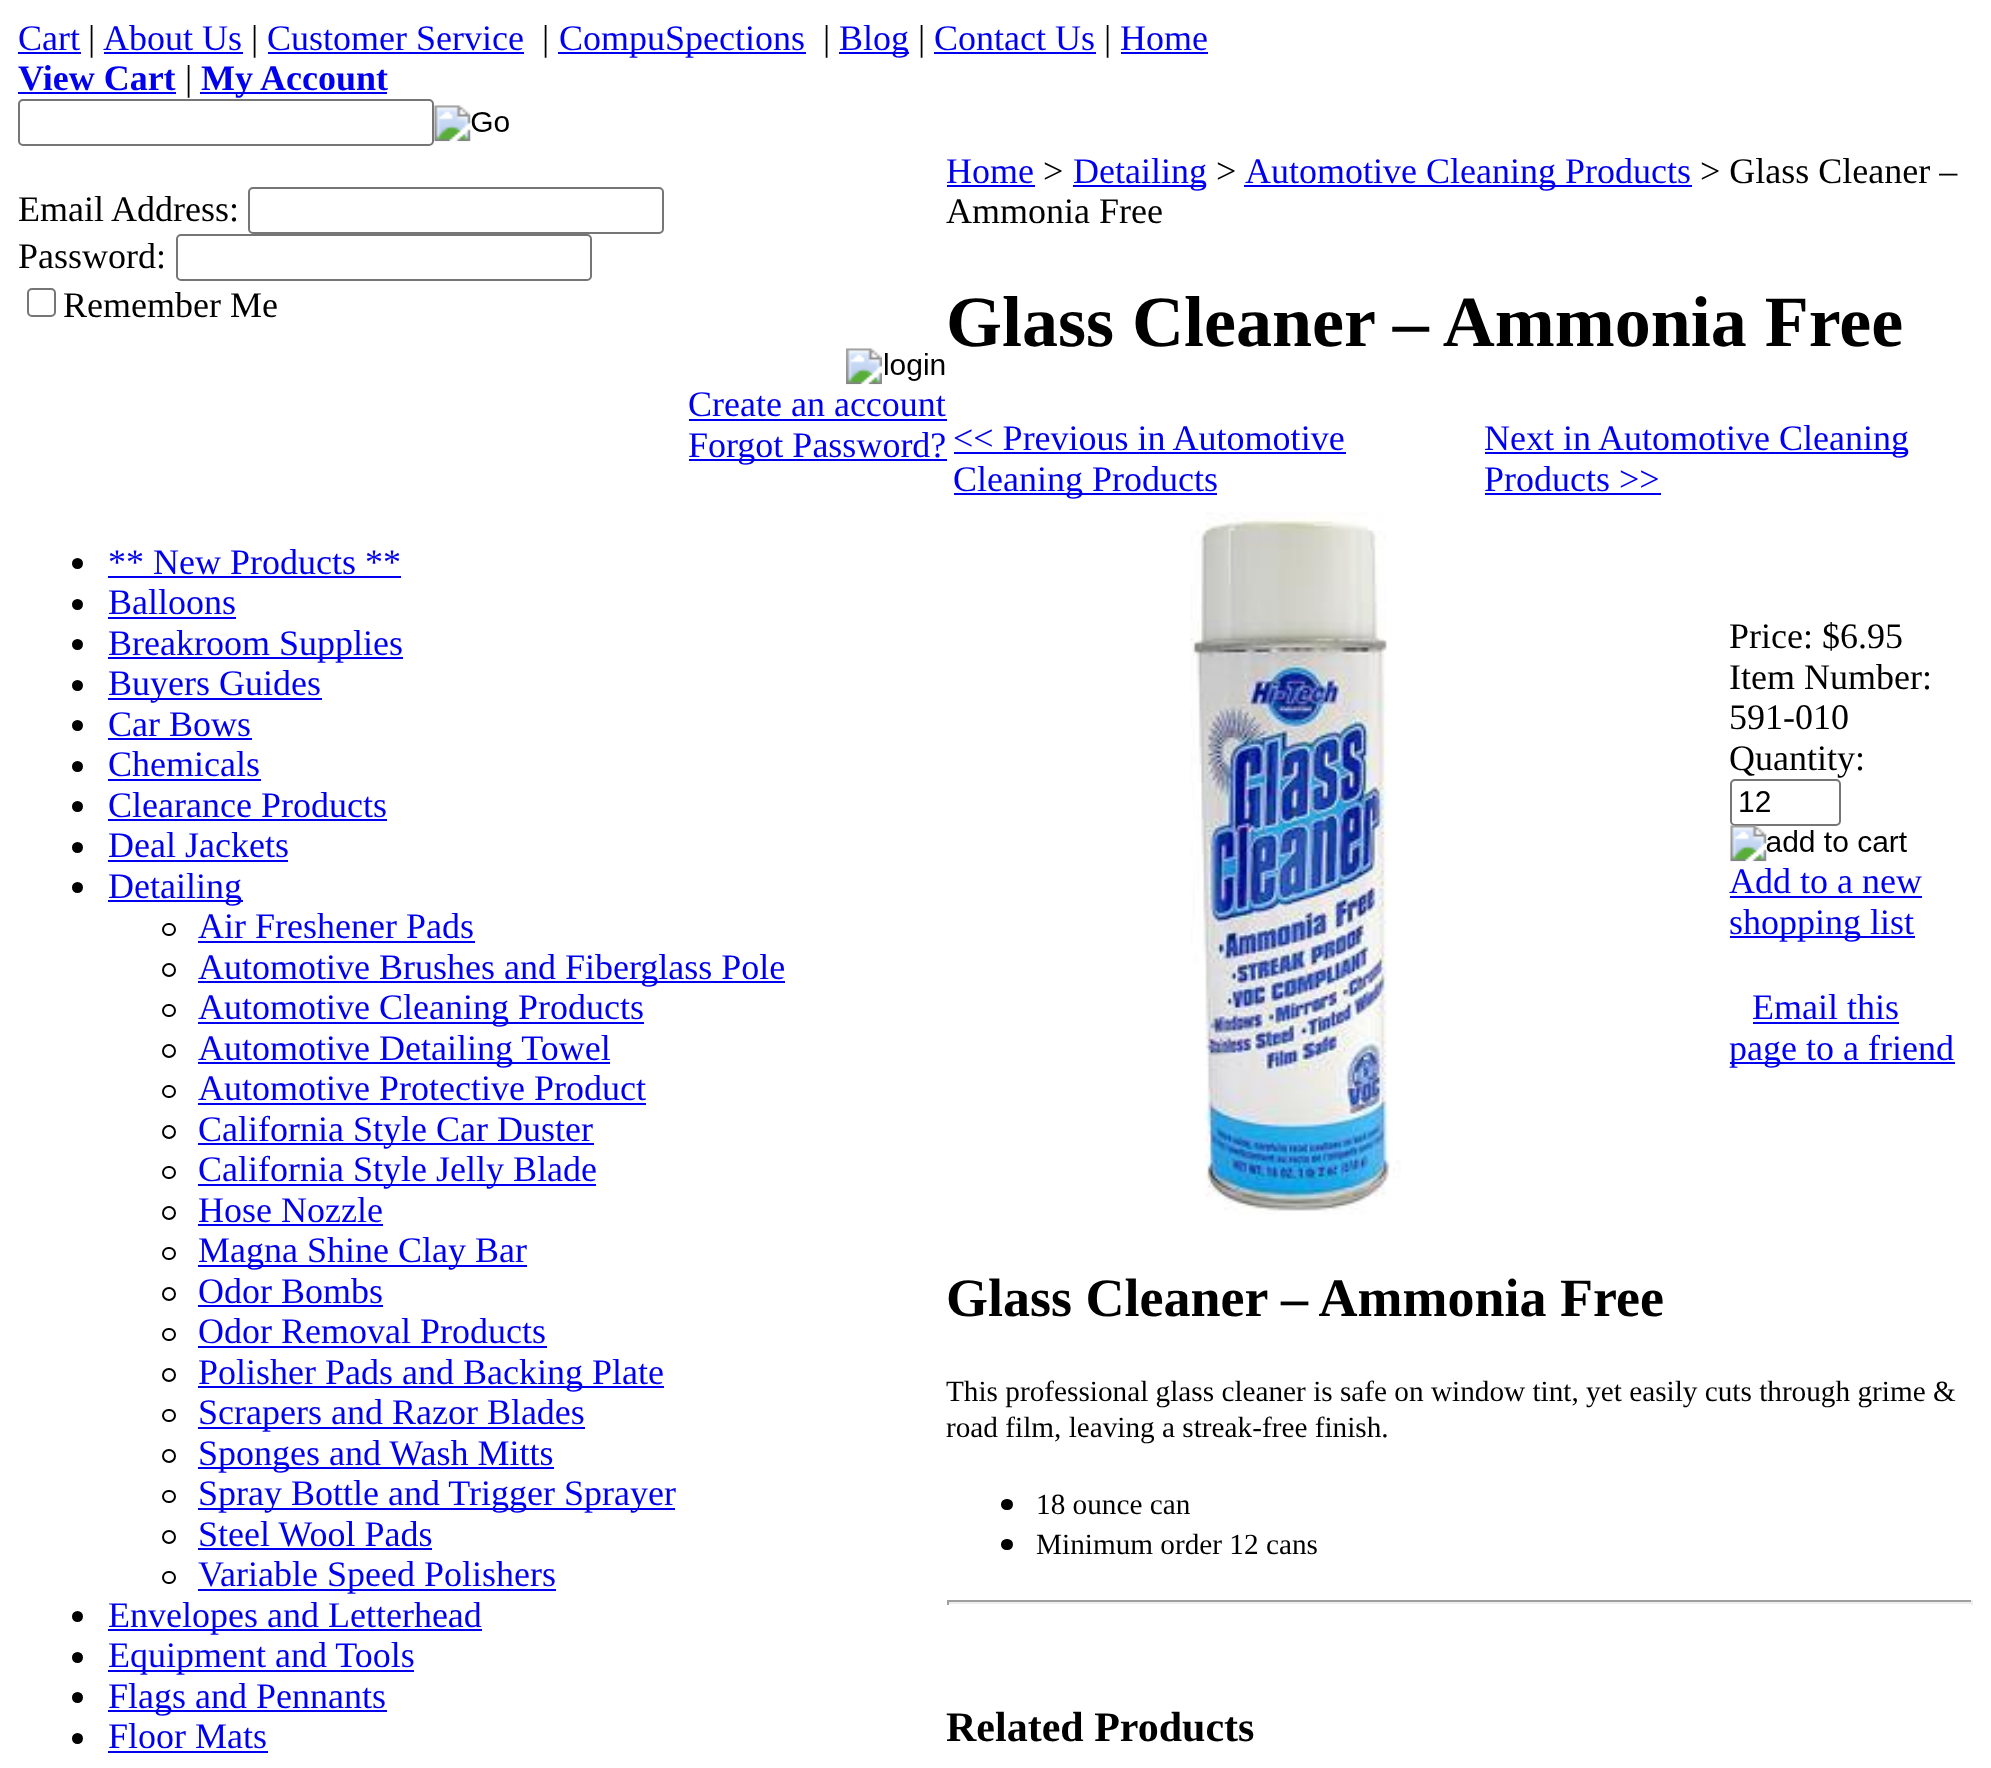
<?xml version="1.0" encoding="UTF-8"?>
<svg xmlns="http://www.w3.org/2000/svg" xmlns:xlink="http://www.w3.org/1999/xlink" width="1991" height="1768">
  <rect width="100%" height="100%" fill="#ffffff" />
  <rect x="18" y="52" width="63" height="2" fill="#0000ee" />
  <rect x="104" y="52" width="139" height="2" fill="#0000ee" />
  <rect x="268" y="52" width="256" height="2" fill="#0000ee" />
  <rect x="558" y="52" width="248" height="2" fill="#0000ee" />
  <rect x="839" y="52" width="70" height="2" fill="#0000ee" />
  <rect x="934" y="52" width="162" height="2" fill="#0000ee" />
  <rect x="1121" y="52" width="87" height="2" fill="#0000ee" />
  <rect x="18" y="92" width="158" height="2" fill="#0000ee" />
  <rect x="200" y="92" width="187" height="2" fill="#0000ee" />
  <rect x="19" y="100" width="414" height="45" rx="4" fill="none" stroke="#767676" stroke-width="2" />
  <image x="434" y="105" width="75" height="37" xlink:href="image1.png" />
  <rect x="249" y="188" width="414" height="45" rx="4" fill="none" stroke="#767676" stroke-width="2" />
  <rect x="177" y="235" width="414" height="45" rx="4" fill="none" stroke="#767676" stroke-width="2" />
  <rect x="28" y="289" width="27" height="27" rx="4" fill="none" stroke="#767676" stroke-width="2" />
  <image x="846" y="348" width="99" height="37" xlink:href="image2.png" />
  <rect x="689" y="419" width="258" height="2" fill="#0000ee" />
  <rect x="689" y="459" width="258" height="2" fill="#0000ee" />
  <circle cx="77.5" cy="563.5" r="5.5" fill="#000000" />
  <rect x="108" y="576" width="293" height="2" fill="#0000ee" />
  <circle cx="77.5" cy="604.5" r="5.5" fill="#000000" />
  <rect x="108" y="617" width="128" height="2" fill="#0000ee" />
  <circle cx="77.5" cy="644.5" r="5.5" fill="#000000" />
  <rect x="108" y="657" width="295" height="2" fill="#0000ee" />
  <circle cx="77.5" cy="685.5" r="5.5" fill="#000000" />
  <rect x="108" y="698" width="214" height="2" fill="#0000ee" />
  <circle cx="77.5" cy="725.5" r="5.5" fill="#000000" />
  <rect x="108" y="738" width="144" height="2" fill="#0000ee" />
  <circle cx="77.5" cy="766.5" r="5.5" fill="#000000" />
  <rect x="108" y="779" width="153" height="2" fill="#0000ee" />
  <circle cx="77.5" cy="806.5" r="5.5" fill="#000000" />
  <rect x="108" y="819" width="279" height="2" fill="#0000ee" />
  <circle cx="77.5" cy="847.5" r="5.5" fill="#000000" />
  <rect x="108" y="860" width="180" height="2" fill="#0000ee" />
  <circle cx="77.5" cy="887.5" r="5.5" fill="#000000" />
  <rect x="108" y="900" width="135" height="2" fill="#0000ee" />
  <rect x="163" y="924" width="12" height="11" rx="5.5" fill="none" stroke="#000000" stroke-width="2" />
  <rect x="198" y="941" width="277" height="2" fill="#0000ee" />
  <circle cx="169" cy="970" r="6" fill="none" stroke="#000000" stroke-width="2" />
  <rect x="198" y="981" width="587" height="2" fill="#0000ee" />
  <rect x="163" y="1005" width="12" height="11" rx="5.5" fill="none" stroke="#000000" stroke-width="2" />
  <rect x="198" y="1022" width="446" height="2" fill="#0000ee" />
  <circle cx="169" cy="1051" r="6" fill="none" stroke="#000000" stroke-width="2" />
  <rect x="198" y="1062" width="412" height="2" fill="#0000ee" />
  <rect x="163" y="1086" width="12" height="11" rx="5.5" fill="none" stroke="#000000" stroke-width="2" />
  <rect x="198" y="1103" width="448" height="2" fill="#0000ee" />
  <circle cx="169" cy="1132" r="6" fill="none" stroke="#000000" stroke-width="2" />
  <rect x="198" y="1143" width="396" height="2" fill="#0000ee" />
  <rect x="163" y="1167" width="12" height="11" rx="5.5" fill="none" stroke="#000000" stroke-width="2" />
  <rect x="198" y="1184" width="398" height="2" fill="#0000ee" />
  <circle cx="169" cy="1213" r="6" fill="none" stroke="#000000" stroke-width="2" />
  <rect x="198" y="1224" width="185" height="2" fill="#0000ee" />
  <rect x="163" y="1248" width="12" height="11" rx="5.5" fill="none" stroke="#000000" stroke-width="2" />
  <rect x="198" y="1265" width="329" height="2" fill="#0000ee" />
  <circle cx="169" cy="1294" r="6" fill="none" stroke="#000000" stroke-width="2" />
  <rect x="198" y="1305" width="185" height="2" fill="#0000ee" />
  <rect x="163" y="1329" width="12" height="11" rx="5.5" fill="none" stroke="#000000" stroke-width="2" />
  <rect x="198" y="1346" width="349" height="2" fill="#0000ee" />
  <circle cx="169" cy="1375" r="6" fill="none" stroke="#000000" stroke-width="2" />
  <rect x="198" y="1386" width="466" height="2" fill="#0000ee" />
  <rect x="163" y="1410" width="12" height="11" rx="5.5" fill="none" stroke="#000000" stroke-width="2" />
  <rect x="198" y="1427" width="387" height="2" fill="#0000ee" />
  <circle cx="169" cy="1456" r="6" fill="none" stroke="#000000" stroke-width="2" />
  <rect x="198" y="1467" width="356" height="2" fill="#0000ee" />
  <rect x="163" y="1491" width="12" height="11" rx="5.5" fill="none" stroke="#000000" stroke-width="2" />
  <rect x="198" y="1508" width="477" height="2" fill="#0000ee" />
  <circle cx="169" cy="1537" r="6" fill="none" stroke="#000000" stroke-width="2" />
  <rect x="198" y="1548" width="234" height="2" fill="#0000ee" />
  <rect x="163" y="1572" width="12" height="11" rx="5.5" fill="none" stroke="#000000" stroke-width="2" />
  <rect x="198" y="1589" width="358" height="2" fill="#0000ee" />
  <circle cx="77.5" cy="1616.5" r="5.5" fill="#000000" />
  <rect x="108" y="1629" width="374" height="2" fill="#0000ee" />
  <circle cx="77.5" cy="1657.5" r="5.5" fill="#000000" />
  <rect x="108" y="1670" width="306" height="2" fill="#0000ee" />
  <circle cx="77.5" cy="1697.5" r="5.5" fill="#000000" />
  <rect x="108" y="1710" width="279" height="2" fill="#0000ee" />
  <circle cx="77.5" cy="1738.5" r="5.5" fill="#000000" />
  <rect x="108" y="1751" width="160" height="2" fill="#0000ee" />
  <rect x="947" y="185" width="88" height="2" fill="#0000ee" />
  <rect x="1073" y="185" width="133" height="2" fill="#0000ee" />
  <rect x="1244" y="185" width="448" height="2" fill="#0000ee" />
  <rect x="954" y="452" width="392" height="2" fill="#0000ee" />
  <rect x="954" y="493" width="263" height="2" fill="#0000ee" />
  <rect x="1485" y="452" width="423" height="2" fill="#0000ee" />
  <rect x="1485" y="493" width="176" height="2" fill="#0000ee" />
  <image x="1190" y="512" width="211" height="703" xlink:href="image3.png" />
  <rect x="1731" y="780" width="109" height="45" rx="4" fill="none" stroke="#767676" stroke-width="2" />
  <image x="1730" y="825" width="177" height="37" xlink:href="image4.png" />
  <rect x="1730" y="896" width="192" height="2" fill="#0000ee" />
  <rect x="1730" y="936" width="185" height="2" fill="#0000ee" />
  <rect x="1753" y="1022" width="146" height="2" fill="#0000ee" />
  <rect x="1730" y="1062" width="225" height="2" fill="#0000ee" />
  <rect x="1001" y="1499" width="12" height="11" rx="5.5" fill="#000000" />
  <rect x="1001" y="1539" width="12" height="11" rx="5.5" fill="#000000" />
  <rect x="947" y="1600" width="1026" height="2" fill="#9f9f9f" />
  <rect x="1971" y="1600" width="2" height="5" fill="#eeeeee" />
  <rect x="947" y="1602" width="1026" height="2" fill="#eeeeee" />
  <rect x="947" y="1600" width="2" height="5" fill="#9f9f9f" />
  <text x="18" y="50" style="font-family: Liberation Serif; font-size: 36px; fill: #0000ee">Cart</text>
  <text x="88" y="50" style="font-family: Liberation Serif; font-size: 36px; fill: #000000">|</text>
  <text x="103" y="50" style="font-family: Liberation Serif; font-size: 36px; fill: #0000ee">About Us</text>
  <text x="251" y="50" style="font-family: Liberation Serif; font-size: 36px; fill: #000000">|</text>
  <text x="267" y="50" style="font-family: Liberation Serif; font-size: 36px; fill: #0000ee">Customer Service</text>
  <text x="542" y="50" style="font-family: Liberation Serif; font-size: 36px; fill: #000000">|</text>
  <text x="559" y="50" style="font-family: Liberation Serif; font-size: 36px; fill: #0000ee">CompuSpections</text>
  <text x="823" y="50" style="font-family: Liberation Serif; font-size: 36px; fill: #000000">|</text>
  <text x="839" y="50" style="font-family: Liberation Serif; font-size: 36px; fill: #0000ee">Blog</text>
  <text x="918" y="50" style="font-family: Liberation Serif; font-size: 36px; fill: #000000">|</text>
  <text x="934" y="50" style="font-family: Liberation Serif; font-size: 36px; fill: #0000ee">Contact Us</text>
  <text x="1104" y="50" style="font-family: Liberation Serif; font-size: 36px; fill: #000000">|</text>
  <text x="1120" y="50" style="font-family: Liberation Serif; font-size: 36px; fill: #0000ee">Home</text>
  <text x="18" y="90" style="font-family: Liberation Serif; font-size: 36px; font-weight: bold; fill: #0000ee">View Cart</text>
  <text x="185" y="90" style="font-family: Liberation Serif; font-size: 36px; fill: #000000">|</text>
  <text x="201" y="90" style="font-family: Liberation Serif; font-size: 36px; font-weight: bold; fill: #0000ee">My Account</text>
  <text x="18" y="221" style="font-family: Liberation Serif; font-size: 36px; fill: #000000">Email Address:</text>
  <text x="18" y="268" style="font-family: Liberation Serif; font-size: 36px; fill: #000000">Password:</text>
  <text x="63" y="317" style="font-family: Liberation Serif; font-size: 36px; fill: #000000">Remember Me</text>
  <text x="688" y="416" style="font-family: Liberation Serif; font-size: 36px; fill: #0000ee">Create an account</text>
  <text x="688" y="457" style="font-family: Liberation Serif; font-size: 36px; fill: #0000ee">Forgot Password?</text>
  <text x="108" y="574" style="font-family: Liberation Serif; font-size: 36px; fill: #0000ee">** New Products **</text>
  <text x="108" y="614" style="font-family: Liberation Serif; font-size: 36px; fill: #0000ee">Balloons</text>
  <text x="108" y="655" style="font-family: Liberation Serif; font-size: 36px; fill: #0000ee">Breakroom Supplies</text>
  <text x="108" y="695" style="font-family: Liberation Serif; font-size: 36px; fill: #0000ee">Buyers Guides</text>
  <text x="108" y="736" style="font-family: Liberation Serif; font-size: 36px; fill: #0000ee">Car Bows</text>
  <text x="108" y="776" style="font-family: Liberation Serif; font-size: 36px; fill: #0000ee">Chemicals</text>
  <text x="108" y="817" style="font-family: Liberation Serif; font-size: 36px; fill: #0000ee">Clearance Products</text>
  <text x="108" y="857" style="font-family: Liberation Serif; font-size: 36px; fill: #0000ee">Deal Jackets</text>
  <text x="108" y="898" style="font-family: Liberation Serif; font-size: 36px; fill: #0000ee">Detailing</text>
  <text x="198" y="938" style="font-family: Liberation Serif; font-size: 36px; fill: #0000ee">Air Freshener Pads</text>
  <text x="198" y="979" style="font-family: Liberation Serif; font-size: 36px; fill: #0000ee">Automotive Brushes and Fiberglass Pole</text>
  <text x="198" y="1019" style="font-family: Liberation Serif; font-size: 36px; fill: #0000ee">Automotive Cleaning Products</text>
  <text x="198" y="1060" style="font-family: Liberation Serif; font-size: 36px; fill: #0000ee">Automotive Detailing Towel</text>
  <text x="198" y="1100" style="font-family: Liberation Serif; font-size: 36px; fill: #0000ee">Automotive Protective Product</text>
  <text x="198" y="1141" style="font-family: Liberation Serif; font-size: 36px; fill: #0000ee">California Style Car Duster</text>
  <text x="198" y="1181" style="font-family: Liberation Serif; font-size: 36px; fill: #0000ee">California Style Jelly Blade</text>
  <text x="198" y="1222" style="font-family: Liberation Serif; font-size: 36px; fill: #0000ee">Hose Nozzle</text>
  <text x="198" y="1262" style="font-family: Liberation Serif; font-size: 36px; fill: #0000ee">Magna Shine Clay Bar</text>
  <text x="198" y="1303" style="font-family: Liberation Serif; font-size: 36px; fill: #0000ee">Odor Bombs</text>
  <text x="198" y="1343" style="font-family: Liberation Serif; font-size: 36px; fill: #0000ee">Odor Removal Products</text>
  <text x="198" y="1384" style="font-family: Liberation Serif; font-size: 36px; fill: #0000ee">Polisher Pads and Backing Plate</text>
  <text x="198" y="1424" style="font-family: Liberation Serif; font-size: 36px; fill: #0000ee">Scrapers and Razor Blades</text>
  <text x="198" y="1465" style="font-family: Liberation Serif; font-size: 36px; fill: #0000ee">Sponges and Wash Mitts</text>
  <text x="198" y="1505" style="font-family: Liberation Serif; font-size: 36px; fill: #0000ee">Spray Bottle and Trigger Sprayer</text>
  <text x="198" y="1546" style="font-family: Liberation Serif; font-size: 36px; fill: #0000ee">Steel Wool Pads</text>
  <text x="198" y="1586" style="font-family: Liberation Serif; font-size: 36px; fill: #0000ee">Variable Speed Polishers</text>
  <text x="108" y="1627" style="font-family: Liberation Serif; font-size: 36px; fill: #0000ee">Envelopes and Letterhead</text>
  <text x="108" y="1667" style="font-family: Liberation Serif; font-size: 36px; fill: #0000ee">Equipment and Tools</text>
  <text x="108" y="1708" style="font-family: Liberation Serif; font-size: 36px; fill: #0000ee">Flags and Pennants</text>
  <text x="108" y="1748" style="font-family: Liberation Serif; font-size: 36px; fill: #0000ee">Floor Mats</text>
  <text x="946" y="183" style="font-family: Liberation Serif; font-size: 36px; fill: #0000ee">Home</text>
  <text x="1043" y="183" style="font-family: Liberation Serif; font-size: 36px; fill: #000000">&gt;</text>
  <text x="1073" y="183" style="font-family: Liberation Serif; font-size: 36px; fill: #0000ee">Detailing</text>
  <text x="1216" y="183" style="font-family: Liberation Serif; font-size: 36px; fill: #000000">&gt;</text>
  <text x="1245" y="183" style="font-family: Liberation Serif; font-size: 36px; fill: #0000ee">Automotive Cleaning Products</text>
  <text x="1700" y="183" style="font-family: Liberation Serif; font-size: 36px; fill: #000000">&gt; Glass Cleaner –</text>
  <text x="946" y="223" style="font-family: Liberation Serif; font-size: 36px; fill: #000000">Ammonia Free</text>
  <text x="946" y="346" style="font-family: Liberation Serif; font-size: 72px; font-weight: bold; fill: #000000">Glass Cleaner – Ammonia Free</text>
  <text x="953" y="450" style="font-family: Liberation Serif; font-size: 36px; fill: #0000ee">&lt;&lt; Previous in Automotive</text>
  <text x="953" y="491" style="font-family: Liberation Serif; font-size: 36px; fill: #0000ee">Cleaning Products</text>
  <text x="1484" y="450" style="font-family: Liberation Serif; font-size: 36px; fill: #0000ee">Next in Automotive Cleaning</text>
  <text x="1484" y="491" style="font-family: Liberation Serif; font-size: 36px; fill: #0000ee">Products &gt;&gt;</text>
  <text x="1729" y="648" style="font-family: Liberation Serif; font-size: 36px; fill: #000000">Price: $6.95</text>
  <text x="1729" y="689" style="font-family: Liberation Serif; font-size: 36px; fill: #000000">Item Number:</text>
  <text x="1729" y="729" style="font-family: Liberation Serif; font-size: 36px; fill: #000000">591-010</text>
  <text x="1729" y="770" style="font-family: Liberation Serif; font-size: 36px; fill: #000000">Quantity:</text>
  <text x="1738" y="812" style="font-family: Liberation Sans; font-size: 30px; fill: #000000">12</text>
  <text x="1729" y="893" style="font-family: Liberation Serif; font-size: 36px; fill: #0000ee">Add to a new</text>
  <text x="1729" y="934" style="font-family: Liberation Serif; font-size: 36px; fill: #0000ee">shopping list</text>
  <text x="1752" y="1019" style="font-family: Liberation Serif; font-size: 36px; fill: #0000ee">Email this</text>
  <text x="1729" y="1060" style="font-family: Liberation Serif; font-size: 36px; fill: #0000ee">page to a friend</text>
  <text x="946" y="1316" style="font-family: Liberation Serif; font-size: 54px; font-weight: bold; fill: #000000">Glass Cleaner – Ammonia Free</text>
  <text x="946" y="1401" style="font-family: Liberation Serif; font-size: 29.25px; fill: #000000">This professional glass cleaner is safe on window tint, yet easily cuts through grime &amp;</text>
  <text x="946" y="1437" style="font-family: Liberation Serif; font-size: 29.25px; fill: #000000">road film, leaving a streak-free finish.</text>
  <text x="1036" y="1514" style="font-family: Liberation Serif; font-size: 29.25px; fill: #000000">18 ounce can</text>
  <text x="1036" y="1554" style="font-family: Liberation Serif; font-size: 29.25px; fill: #000000">Minimum order 12 cans</text>
  <text x="946" y="1741" style="font-family: Liberation Serif; font-size: 42px; font-weight: bold; fill: #000000">Related Products</text>
</svg>
